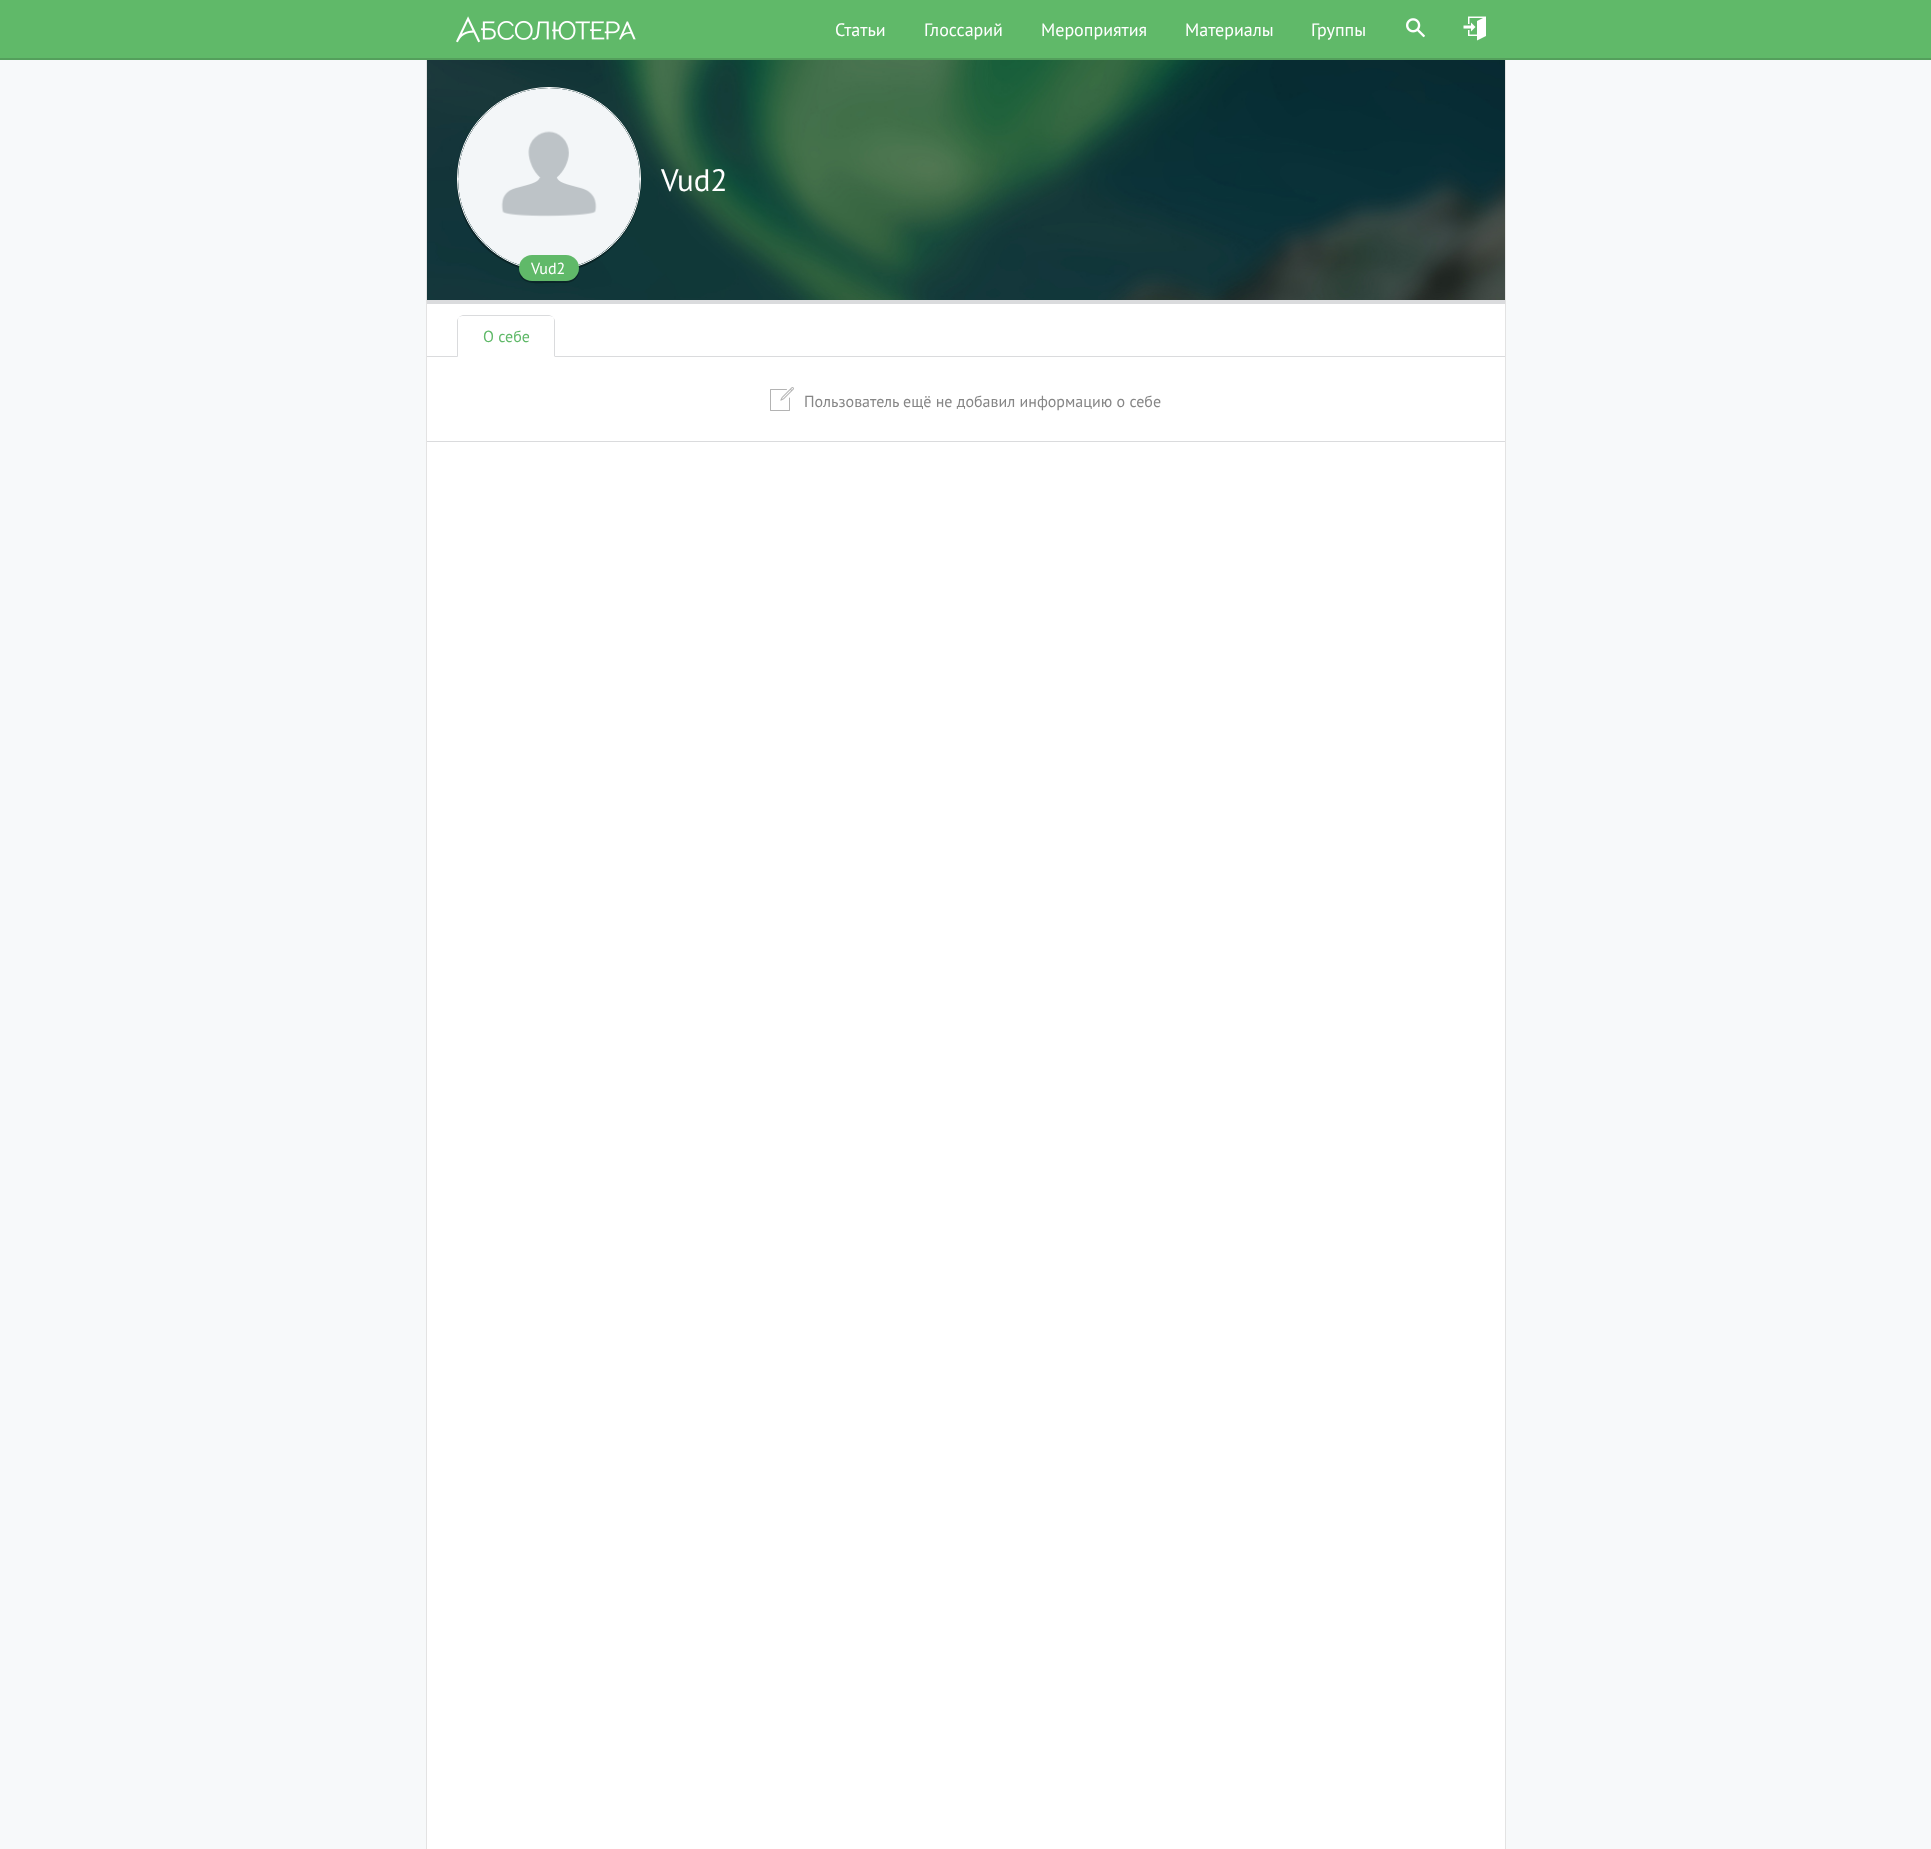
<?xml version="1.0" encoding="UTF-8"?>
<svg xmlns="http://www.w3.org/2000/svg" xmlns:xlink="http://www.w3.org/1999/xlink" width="1931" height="1849">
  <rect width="100%" height="100%" fill="#f7f9fa" />
  <rect width="1931" height="58" fill="#60b969" />
  <rect y="58" width="1931" height="2" fill="#549f5c" />
  <image x="456" y="16" width="180" height="27" xlink:href="image1.png" />
  <image x="1406" y="18" width="19" height="20" xlink:href="image2.png" />
  <image x="1463" y="16" width="23" height="25" xlink:href="image3.png" />
  <rect x="427" y="304" width="1078" height="1545" fill="#ffffff" />
  <rect x="1505" y="60" width="1" height="1789" fill="#e3e3e3" />
  <rect x="426" y="60" width="1" height="1789" fill="#e3e3e3" />
  <rect x="427" y="300" width="1078" height="4" fill="#dadbdd" />
  <image x="427" y="60" width="1078" height="240" xlink:href="image4.png" />
  <path d="M 457 180 c -1 91 117 128 168 52 c 11 -15 16 -33 16 -52 c -1 50 -42 91 -92 91 c -50 0 -91 -41 -92 -91 z" fill="#000000" fill-opacity="0.3" />
  <circle cx="549" cy="179" r="91.5" fill="none" stroke="#ffffff" />
  <image x="458" y="88" width="182" height="177" xlink:href="image5.png" />
  <path d="M 519 270 c 0 16 20 13 30 13 h 11 c 7 0 13 0 17 -6 c 2 -2 2 -6 2 -9 c 0 16 -20 13 -30 13 c -10 0 -28 3 -30 -11 z" fill="#0b2628" />
  <rect x="519" y="255" width="60" height="26" rx="13" fill="#60b969" />
  <rect x="427" y="356" width="1078" height="1" fill="#dadbdd" />
  <path d="M 463 315 c -1 0 -3 1 -4 2 l 3 -1 h 88 l 3 1 c -1 -1 -3 -2 -4 -2 z" fill="#dadbdd" />
  <path d="M 555 357 v -36 c 0 -1 -1 -3 -2 -4 c 1 1 1 3 1 4 v 35 z" fill="#dadbdd" />
  <path d="M 555 357 l -1 -1 h -96 l -1 1 z" fill="#ffffff" />
  <path d="M 457 357 l 1 -1 v -35 c 0 -1 0 -3 1 -4 c -1 1 -2 3 -2 4 z" fill="#dadbdd" />
  <image x="770" y="387" width="24" height="24" xlink:href="image6.png" />
  <rect x="427" y="441" width="1078" height="1" fill="#dadbdd" />
  <text x="835" y="36" style="font-family: PT Sans; font-size: 18px; fill: #ffffff">Статьи</text>
  <text x="924" y="36" style="font-family: PT Sans; font-size: 18px; fill: #ffffff">Глоссарий</text>
  <text x="1041" y="36" style="font-family: PT Sans; font-size: 18px; fill: #ffffff">Мероприятия</text>
  <text x="1185" y="36" style="font-family: PT Sans; font-size: 18px; fill: #ffffff">Материалы</text>
  <text x="1311" y="36" style="font-family: PT Sans; font-size: 18px; fill: #ffffff">Группы</text>
  <text x="661" y="191" style="font-family: PT Sans; font-size: 31px; fill: #ffffff">Vud2</text>
  <text x="531" y="274" style="font-family: PT Sans; font-size: 16px; fill: #ffffff">Vud2</text>
  <text x="483" y="342" style="font-family: PT Sans; font-size: 16px; fill: #60b969">О себе</text>
  <text x="804" y="407" style="font-family: PT Sans; font-size: 16px; fill: #868686">Пользователь ещё не добавил информацию о себе</text>
</svg>
